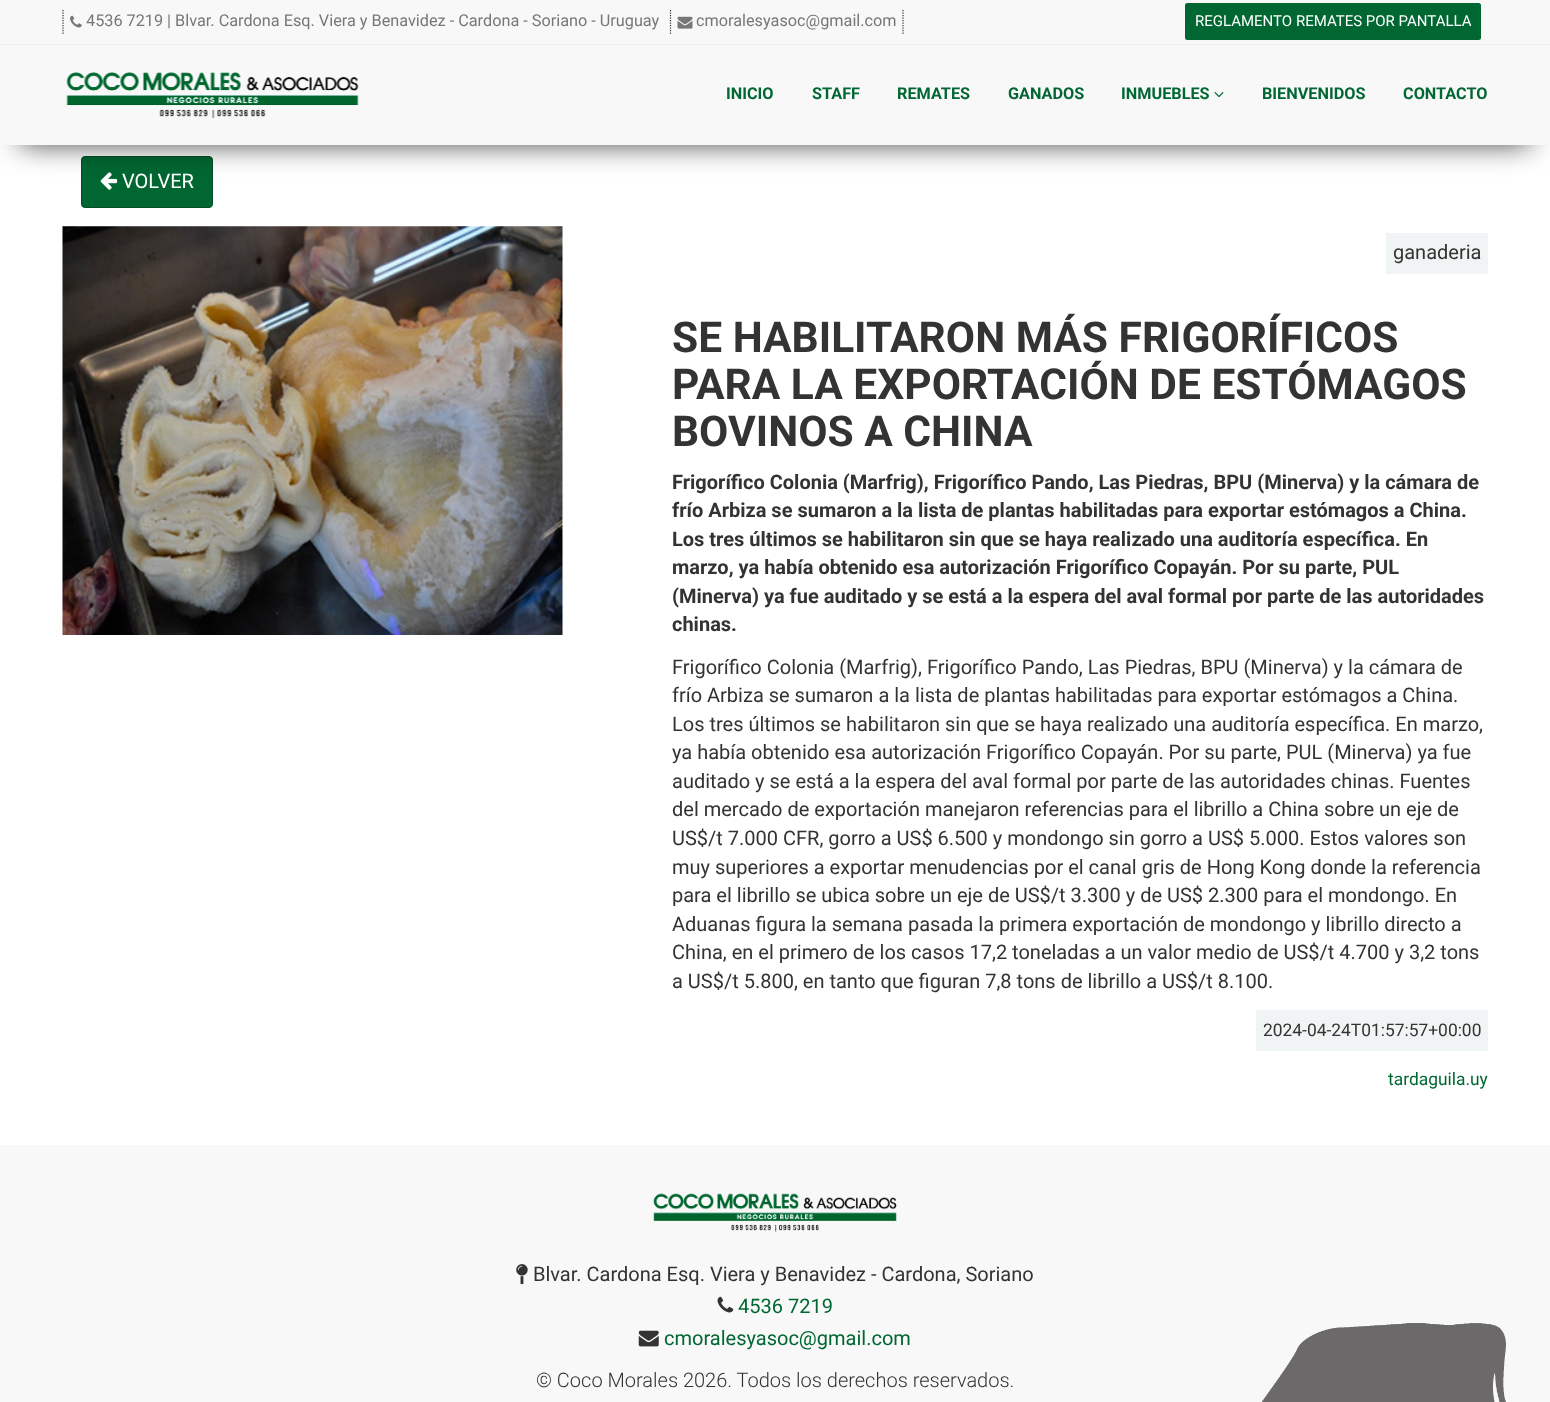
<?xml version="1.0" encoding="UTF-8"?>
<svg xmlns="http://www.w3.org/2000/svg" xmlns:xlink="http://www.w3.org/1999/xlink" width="1550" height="1402">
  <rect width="100%" height="100%" fill="#ffffff" />
  <rect x="81.5" y="156.5" width="131" height="51" rx="3.5" fill="#006732" stroke="#004e26" />
  <image x="100" y="172" width="18" height="18" xlink:href="image5.png" />
  <rect x="20" y="39" width="1510" height="105" fill="#000000" fill-opacity="0.75" filter="blur(14.5px)" />
  <rect width="1550" height="145" fill="#f8f8f8" />
  <rect y="44" width="1550" height="1" fill="#eeeeee" />
  <path d="M 63 10 v 24" fill="none" stroke="#303224" stroke-width="1.2" stroke-dasharray="1.25 1.25" />
  <image x="70" y="15" width="12" height="13" xlink:href="image1.png" />
  <path d="M 903 10 v 24" fill="none" stroke="#303224" stroke-width="1.2" stroke-dasharray="1.25 1.25" />
  <path d="M 670.5 10 v 24" fill="none" stroke="#303224" stroke-width="1.2" stroke-dasharray="1.25 1.25" />
  <image x="677" y="16" width="16" height="13" xlink:href="image2.png" />
  <rect x="1185" y="3" width="296" height="37" rx="2.5" fill="#006732" />
  <image x="66" y="72" width="293" height="46" xlink:href="image3.png" />
  <image x="1214" y="92" width="10" height="6" xlink:href="image4.png" />
  <image x="62" y="226" width="501" height="409" xlink:href="image6.png" />
  <rect x="1386" y="233" width="102" height="41" fill="#f1f4f4" />
  <rect x="1256" y="1010" width="232" height="41" fill="#f1f4f4" />
  <rect y="1145" width="1550" height="257" fill="#f8f8f8" />
  <image x="1262" y="1323" width="244" height="79" xlink:href="image7.png" />
  <image x="653" y="1193" width="244" height="39" xlink:href="image8.png" />
  <image x="516" y="1264" width="12" height="21" xlink:href="image9.png" />
  <image x="717" y="1296" width="17" height="17" xlink:href="image10.png" />
  <image x="638" y="1330" width="21" height="17" xlink:href="image11.png" />
  <text x="86" y="26" style="font-family: Roboto; font-size: 16.25px; fill: #777777">4536 7219 | Blvar. Cardona Esq. Viera y Benavidez - Cardona - Soriano - Uruguay</text>
  <text x="696" y="26" style="font-family: Roboto; font-size: 16.25px; fill: #777777">cmoralesyasoc@gmail.com</text>
  <text x="1195" y="26" style="font-family: Roboto; font-size: 15px; fill: #ffffff">REGLAMENTO REMATES POR PANTALLA</text>
  <text x="726" y="99" style="font-family: Roboto; font-size: 16.25px; font-weight: bold; fill: #006732">INICIO</text>
  <text x="812" y="99" style="font-family: Roboto; font-size: 16.25px; font-weight: bold; fill: #006732">STAFF</text>
  <text x="897" y="99" style="font-family: Roboto; font-size: 16.25px; font-weight: bold; fill: #006732">REMATES</text>
  <text x="1008" y="99" style="font-family: Roboto; font-size: 16.25px; font-weight: bold; fill: #006732">GANADOS</text>
  <text x="1121" y="99" style="font-family: Roboto; font-size: 16.25px; font-weight: bold; fill: #006732">INMUEBLES</text>
  <text x="1262" y="99" style="font-family: Roboto; font-size: 16.25px; font-weight: bold; fill: #006732">BIENVENIDOS</text>
  <text x="1403" y="99" style="font-family: Roboto; font-size: 16.25px; font-weight: bold; fill: #006732">CONTACTO</text>
  <text x="122" y="188" style="font-family: Roboto; font-size: 20px; fill: #ffffff">VOLVER</text>
  <text x="1393" y="259" style="font-family: Roboto; font-size: 20px; fill: #333333">ganaderia</text>
  <text x="672" y="352" style="font-family: Roboto; font-size: 42.5px; font-weight: bold; fill: #333333">SE HABILITARON MÁS FRIGORÍFICOS</text>
  <text x="672" y="399" style="font-family: Roboto; font-size: 42.5px; font-weight: bold; fill: #333333">PARA LA EXPORTACIÓN DE ESTÓMAGOS</text>
  <text x="672" y="446" style="font-family: Roboto; font-size: 42.5px; font-weight: bold; fill: #333333">BOVINOS A CHINA</text>
  <text x="672" y="489" style="font-family: Roboto; font-size: 20px; font-weight: bold; fill: #333333">Frigorífico Colonia (Marfrig), Frigorífico Pando, Las Piedras, BPU (Minerva) y la cámara de</text>
  <text x="672" y="517" style="font-family: Roboto; font-size: 20px; font-weight: bold; fill: #333333">frío Arbiza se sumaron a la lista de plantas habilitadas para exportar estómagos a China.</text>
  <text x="672" y="546" style="font-family: Roboto; font-size: 20px; font-weight: bold; fill: #333333">Los tres últimos se habilitaron sin que se haya realizado una auditoría específica. En</text>
  <text x="672" y="574" style="font-family: Roboto; font-size: 20px; font-weight: bold; fill: #333333">marzo, ya había obtenido esa autorización Frigorífico Copayán. Por su parte, PUL</text>
  <text x="672" y="603" style="font-family: Roboto; font-size: 20px; font-weight: bold; fill: #333333">(Minerva) ya fue auditado y se está a la espera del aval formal por parte de las autoridades</text>
  <text x="672" y="631" style="font-family: Roboto; font-size: 20px; font-weight: bold; fill: #333333">chinas.</text>
  <text x="672" y="674" style="font-family: Roboto; font-size: 20px; fill: #333333">Frigorífico Colonia (Marfrig), Frigorífico Pando, Las Piedras, BPU (Minerva) y la cámara de</text>
  <text x="672" y="702" style="font-family: Roboto; font-size: 20px; fill: #333333">frío Arbiza se sumaron a la lista de plantas habilitadas para exportar estómagos a China.</text>
  <text x="672" y="731" style="font-family: Roboto; font-size: 20px; fill: #333333">Los tres últimos se habilitaron sin que se haya realizado una auditoría específica. En marzo,</text>
  <text x="672" y="759" style="font-family: Roboto; font-size: 20px; fill: #333333">ya había obtenido esa autorización Frigorífico Copayán. Por su parte, PUL (Minerva) ya fue</text>
  <text x="672" y="788" style="font-family: Roboto; font-size: 20px; fill: #333333">auditado y se está a la espera del aval formal por parte de las autoridades chinas. Fuentes</text>
  <text x="672" y="816" style="font-family: Roboto; font-size: 20px; fill: #333333">del mercado de exportación manejaron referencias para el librillo a China sobre un eje de</text>
  <text x="672" y="845" style="font-family: Roboto; font-size: 20px; fill: #333333">US$/t 7.000 CFR, gorro a US$ 6.500 y mondongo sin gorro a US$ 5.000. Estos valores son</text>
  <text x="672" y="874" style="font-family: Roboto; font-size: 20px; fill: #333333">muy superiores a exportar menudencias por el canal gris de Hong Kong donde la referencia</text>
  <text x="672" y="902" style="font-family: Roboto; font-size: 20px; fill: #333333">para el librillo se ubica sobre un eje de US$/t 3.300 y de US$ 2.300 para el mondongo. En</text>
  <text x="672" y="931" style="font-family: Roboto; font-size: 20px; fill: #333333">Aduanas figura la semana pasada la primera exportación de mondongo y librillo directo a</text>
  <text x="672" y="959" style="font-family: Roboto; font-size: 20px; fill: #333333">China, en el primero de los casos 17,2 toneladas a un valor medio de US$/t 4.700 y 3,2 tons</text>
  <text x="672" y="988" style="font-family: Roboto; font-size: 20px; fill: #333333">a US$/t 5.800, en tanto que figuran 7,8 tons de librillo a US$/t 8.100.</text>
  <text x="1263" y="1036" style="font-family: Roboto; font-size: 17.4px; fill: #333333">2024-04-24T01:57:57+00:00</text>
  <text x="1388" y="1085" style="font-family: Roboto; font-size: 17.4px; fill: #006732">tardaguila.uy</text>
  <text x="533" y="1281" style="font-family: Roboto; font-size: 20px; fill: #333333">Blvar. Cardona Esq. Viera y Benavidez - Cardona, Soriano</text>
  <text x="738" y="1313" style="font-family: Roboto; font-size: 20px; fill: #006732">4536 7219</text>
  <text x="664" y="1345" style="font-family: Roboto; font-size: 20px; fill: #006732">cmoralesyasoc@gmail.com</text>
  <text x="536" y="1387" style="font-family: Roboto; font-size: 20px; font-weight: 300; fill: #333333">© Coco Morales 2026. Todos los derechos reservados.</text>
</svg>
